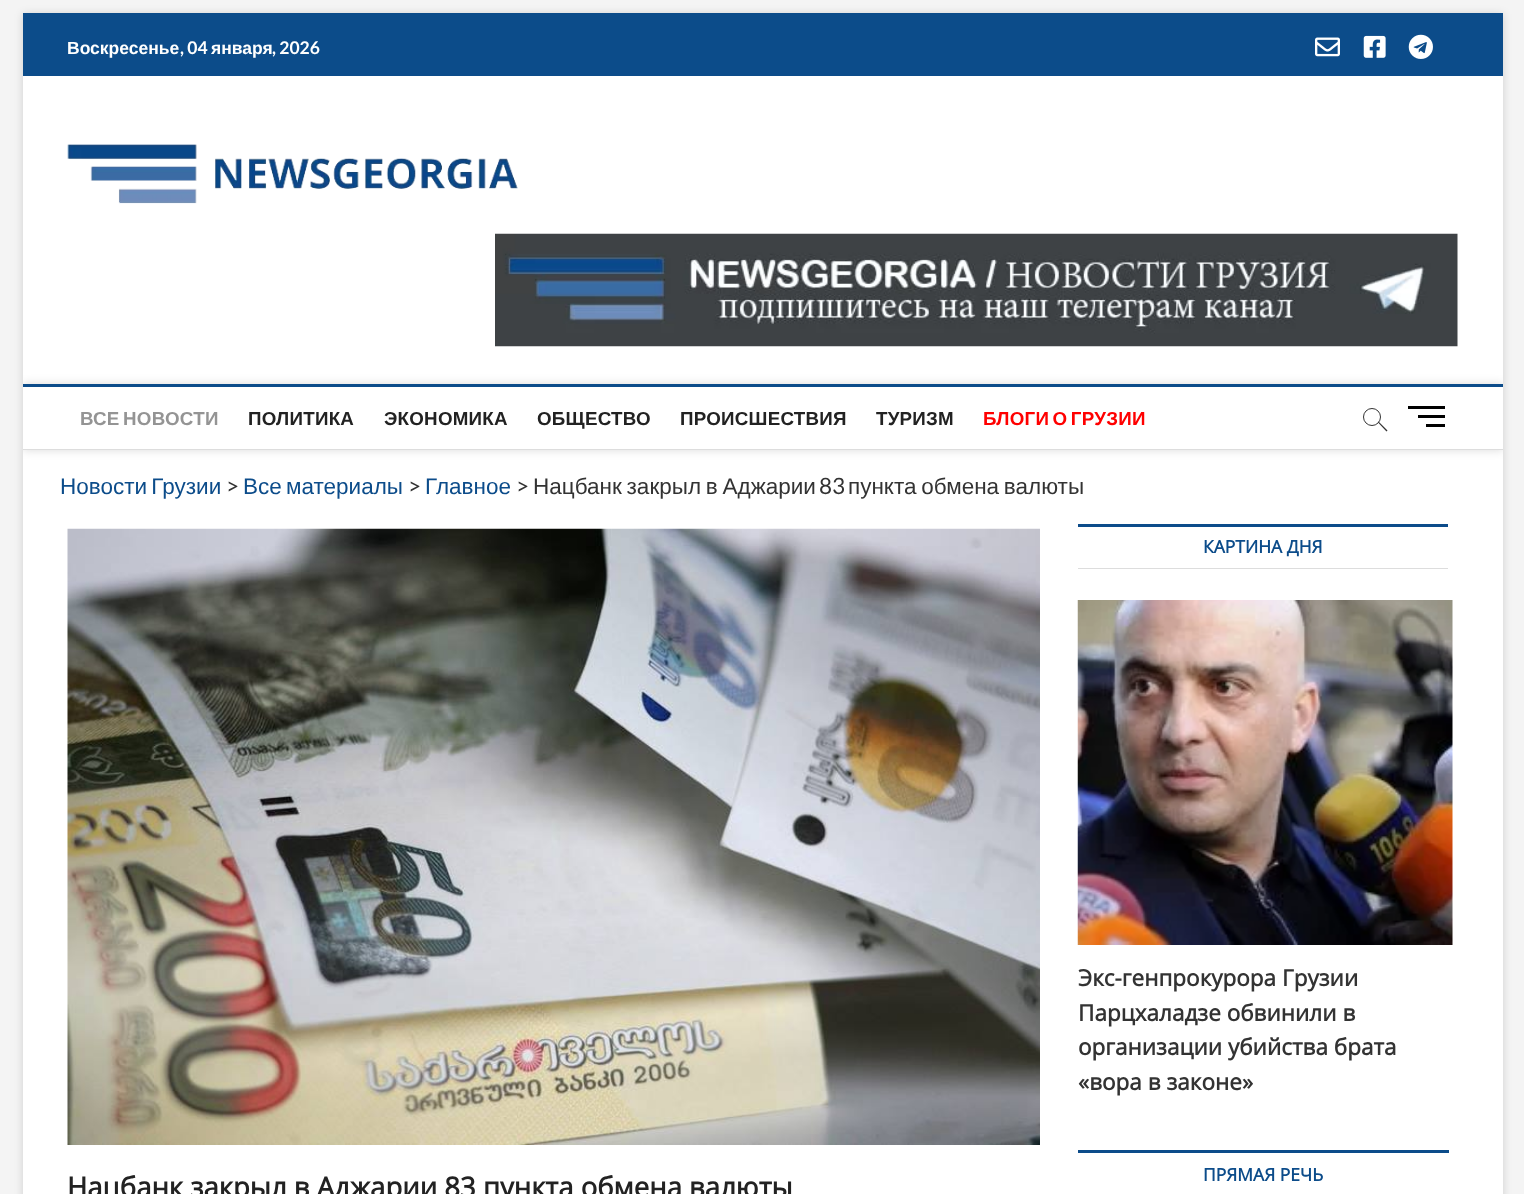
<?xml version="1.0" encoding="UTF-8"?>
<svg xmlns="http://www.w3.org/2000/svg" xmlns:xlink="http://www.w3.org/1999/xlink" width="1524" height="1194">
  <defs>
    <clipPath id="clip1"><rect x="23" y="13" width="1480" height="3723" /></clipPath>
    <clipPath id="clip2"><path d="M 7 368 h 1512 v 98 h -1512 z m 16 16 h 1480 v 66 h -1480 z" clip-rule="evenodd" /></clipPath>
  </defs>
  <rect width="100%" height="100%" fill="#f4f4f4" />
  <rect x="23" y="14" width="1480" height="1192" fill="#000000" fill-opacity="0.15" filter="blur(4px)" />
  <rect x="23" y="76" width="1480" height="1118" fill="#ffffff" />
  <rect x="23" y="13" width="1480" height="63" fill="#0c4c8a" />
  <image x="1315" y="37" width="25" height="20" xlink:href="image1.png" />
  <image x="1363" y="35" width="23" height="23" xlink:href="image2.png" />
  <image x="1408" y="34" width="25" height="25" xlink:href="image3.png" />
  <image x="67" y="144" width="451" height="60" xlink:href="image4.png" />
  <image x="495" y="233" width="963" height="114" xlink:href="image5.png" />
  <g clip-path="url(#clip1)">
    <g clip-path="url(#clip2)">
      <rect x="23" y="384" width="1480" height="66" fill="#000000" fill-opacity="0.15" filter="blur(5px)" />
    </g>
  </g>
  <rect x="23" y="384" width="1480" height="3" fill="#0c4c8a" />
  <rect x="23" y="449" width="1480" height="1" fill="#dddddd" />
  <circle cx="1372" cy="417" r="8.5" fill="none" stroke="#333333" />
  <path d="M 1378 422.5 l 0.5 -1 l 9 9 l -1 1 z" fill="#333333" />
  <rect x="1418" y="415" width="27" height="3" fill="#000000" />
  <rect x="1408" y="406" width="37" height="3" fill="#000000" />
  <rect x="1426" y="424" width="19" height="3" fill="#000000" />
  <rect x="1078" y="524" width="370" height="3" fill="#0c4c8a" />
  <rect x="1078" y="568" width="370" height="1" fill="#dddddd" />
  <image x="1077" y="600" width="376" height="345" xlink:href="image6.png" />
  <rect x="1078" y="1150" width="371" height="3" fill="#0c4c8a" />
  <image x="67" y="528" width="973" height="617" xlink:href="image7.png" />
  <text x="67" y="54" style="font-family: Liberation Sans; font-size: 17.5px; font-weight: bold; fill: #ffffff">Воскресенье</text>
  <text x="180" y="54" style="font-family: Lato; font-size: 17.5px; font-weight: bold; fill: #ffffff">, 04</text>
  <text x="211" y="54" style="font-family: Liberation Sans; font-size: 17.5px; font-weight: bold; fill: #ffffff">января</text>
  <text x="272" y="54" style="font-family: Lato; font-size: 17.5px; font-weight: bold; fill: #ffffff">, 2026</text>
  <text x="80" y="425" word-spacing="-2" style="font-family: Liberation Sans; font-size: 18.75px; font-weight: bold; letter-spacing: 0.25px; fill: #949494">ВСЕ НОВОСТИ</text>
  <text x="248" y="425" style="font-family: Liberation Sans; font-size: 18.75px; font-weight: bold; letter-spacing: 0.25px; fill: #222222">ПОЛИТИКА</text>
  <text x="384" y="425" style="font-family: Liberation Sans; font-size: 18.75px; font-weight: bold; letter-spacing: 0.25px; fill: #222222">ЭКОНОМИКА</text>
  <text x="537" y="425" style="font-family: Liberation Sans; font-size: 18.75px; font-weight: bold; letter-spacing: 0.25px; fill: #222222">ОБЩЕСТВО</text>
  <text x="680" y="425" style="font-family: Liberation Sans; font-size: 18.75px; font-weight: bold; letter-spacing: 0.25px; fill: #222222">ПРОИСШЕСТВИЯ</text>
  <text x="876" y="425" style="font-family: Liberation Sans; font-size: 18.75px; font-weight: bold; letter-spacing: 0.25px; fill: #222222">ТУРИЗМ</text>
  <text x="983" y="425" word-spacing="-2" style="font-family: Liberation Sans; font-size: 18.75px; font-weight: bold; letter-spacing: 0.25px; fill: #ff0000">БЛОГИ О ГРУЗИИ</text>
  <text x="60" y="494" word-spacing="-2" style="font-family: Liberation Sans; font-size: 22.5px; fill: #0c4c8a">Новости Грузии</text>
  <text x="226" y="494" style="font-family: Lato; font-size: 22.5px; fill: #333333">&gt;</text>
  <text x="243" y="494" word-spacing="-2" style="font-family: Liberation Sans; font-size: 22.5px; fill: #0c4c8a">Все материалы</text>
  <text x="408" y="494" style="font-family: Lato; font-size: 22.5px; fill: #333333">&gt;</text>
  <text x="425" y="494" style="font-family: Liberation Sans; font-size: 22.5px; fill: #0c4c8a">Главное</text>
  <text x="516" y="494" style="font-family: Lato; font-size: 22.5px; fill: #333333">&gt;</text>
  <text x="533" y="494" word-spacing="-1.5" style="font-family: Liberation Sans; font-size: 22.5px; fill: #333333">Нацбанк закрыл в Аджарии</text>
  <text x="819" y="494" style="font-family: Lato; font-size: 22.5px; fill: #333333">83</text>
  <text x="848" y="494" word-spacing="-1.5" style="font-family: Liberation Sans; font-size: 22.5px; fill: #333333">пункта обмена валюты</text>
  <text x="1203" y="553" style="font-family: Open Sans; font-size: 17.5px; font-weight: bold; fill: #0c4c8a">КАРТИНА ДНЯ</text>
  <text x="1078" y="986" style="font-family: Open Sans; font-size: 22.5px; font-weight: bold; fill: #333333">Экс-генпрокурора Грузии</text>
  <text x="1078" y="1021" style="font-family: Open Sans; font-size: 22.5px; font-weight: bold; fill: #333333">Парцхаладзе обвинили в</text>
  <text x="1078" y="1055" style="font-family: Open Sans; font-size: 22.5px; font-weight: bold; fill: #333333">организации убийства брата</text>
  <text x="1078" y="1090" style="font-family: Open Sans; font-size: 22.5px; font-weight: bold; fill: #333333">«вора в законе»</text>
  <text x="1203" y="1181" style="font-family: Open Sans; font-size: 17.5px; font-weight: bold; fill: #0c4c8a">ПРЯМАЯ РЕЧЬ</text>
  <text x="67" y="1197" style="font-family: Open Sans; font-size: 27.5px; font-weight: bold; fill: #222222">Нацбанк закрыл в Аджарии 83 пункта обмена валюты</text>
</svg>
